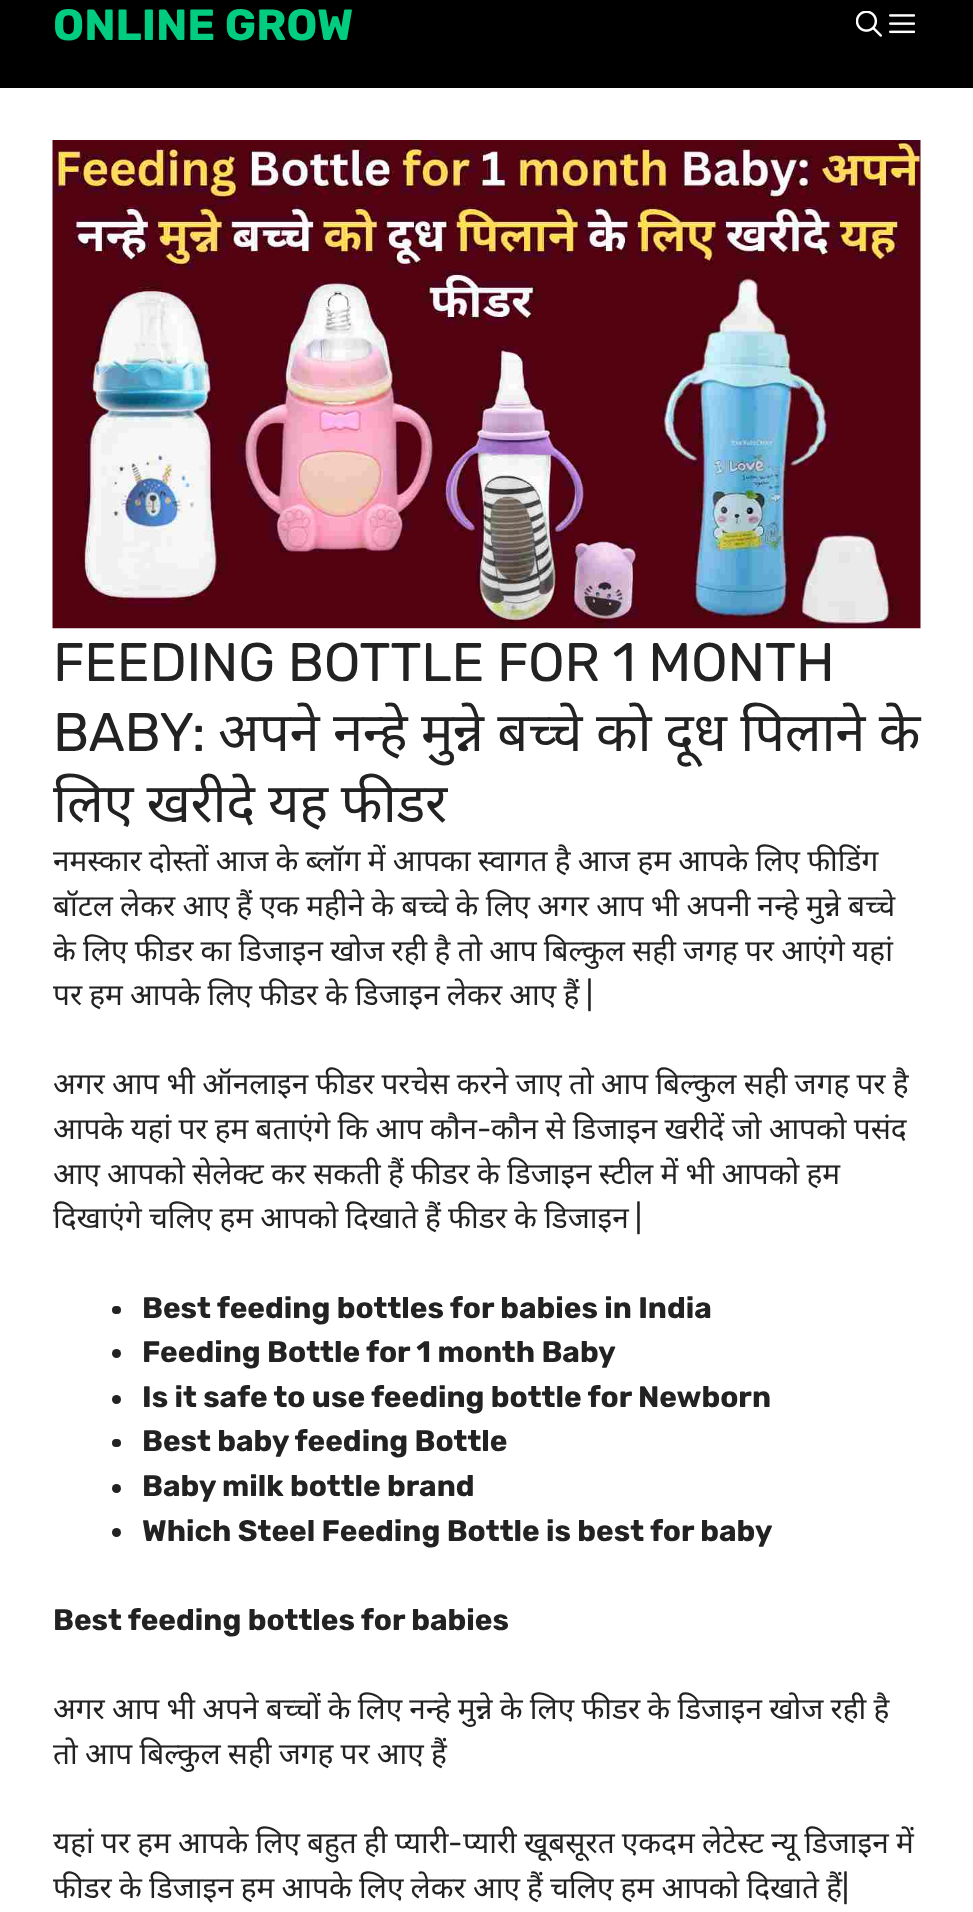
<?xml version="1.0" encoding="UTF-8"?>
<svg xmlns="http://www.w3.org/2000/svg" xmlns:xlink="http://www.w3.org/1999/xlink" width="973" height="1912">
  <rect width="100%" height="100%" fill="#ffffff" />
  <rect width="973" height="88" fill="#000000" />
  <image x="856" y="11" width="26" height="26" xlink:href="image1.png" />
  <image x="889" y="14" width="26" height="20" xlink:href="image2.png" />
  <image x="52" y="140" width="869" height="489" xlink:href="image3.png" />
  <rect x="112" y="1306" width="9" height="8" rx="4" fill="#222222" />
  <circle cx="116.5" cy="1353.5" r="4.5" fill="#222222" />
  <circle cx="116.5" cy="1399.5" r="4.5" fill="#222222" />
  <rect x="112" y="1439" width="9" height="8" rx="4" fill="#222222" />
  <circle cx="116.5" cy="1488.5" r="4.5" fill="#222222" />
  <circle cx="116.5" cy="1532.5" r="4.5" fill="#222222" />
  <text x="53" y="40" style="font-family: Rubik; font-size: 43.75px; font-weight: bold; fill: #02cc7f">ONLINE GROW</text>
  <text x="53" y="681" style="font-family: Rubik; font-size: 54.25px; letter-spacing: -0.35px; fill: #222222">FEEDING BOTTLE FOR 1 MONTH</text>
  <text x="53" y="751" style="font-family: Rubik; font-size: 54.25px; letter-spacing: -0.35px; fill: #222222">BABY:</text>
  <text x="218" y="751" style="font-family: Noto Sans; font-size: 54.25px; letter-spacing: -0.35px; fill: #222222">अपने नन्हे मुन्ने बच्चे को दूध पिलाने के</text>
  <text x="53" y="822" word-spacing="-0.5" style="font-family: Noto Sans; font-size: 54.25px; letter-spacing: -0.35px; fill: #222222">लिए खरीदे यह फीडर</text>
  <text x="53" y="871" word-spacing="-0.5" style="font-family: Noto Sans; font-size: 29.75px; fill: #222222">नमस्कार दोस्तों आज के ब्लॉग में आपका स्वागत है आज हम आपके लिए फीडिंग</text>
  <text x="53" y="916" word-spacing="-0.5" style="font-family: Noto Sans; font-size: 29.75px; fill: #222222">बॉटल लेकर आए हैं एक महीने के बच्चे के लिए अगर आप भी अपनी नन्हे मुन्ने बच्चे</text>
  <text x="53" y="961" word-spacing="-0.5" style="font-family: Noto Sans; font-size: 29.75px; fill: #222222">के लिए फीडर का डिजाइन खोज रही है तो आप बिल्कुल सही जगह पर आएंगे यहां</text>
  <text x="53" y="1005" word-spacing="-0.5" style="font-family: Noto Sans; font-size: 29.75px; fill: #222222">पर हम आपके लिए फीडर के डिजाइन लेकर आए हैं</text>
  <text x="586" y="1005" style="font-family: Rubik; font-size: 29.75px; fill: #222222">|</text>
  <text x="53" y="1094" word-spacing="-0.5" style="font-family: Noto Sans; font-size: 29.75px; fill: #222222">अगर आप भी ऑनलाइन फीडर परचेस करने जाए तो आप बिल्कुल सही जगह पर है</text>
  <text x="53" y="1139" word-spacing="-0.5" style="font-family: Noto Sans; font-size: 29.75px; fill: #222222">आपके यहां पर हम बताएंगे कि आप कौन</text>
  <text x="477" y="1139" style="font-family: Rubik; font-size: 29.75px; fill: #222222">-</text>
  <text x="491" y="1139" word-spacing="-0.5" style="font-family: Noto Sans; font-size: 29.75px; fill: #222222">कौन से डिजाइन खरीदें जो आपको पसंद</text>
  <text x="53" y="1184" word-spacing="-0.5" style="font-family: Noto Sans; font-size: 29.75px; fill: #222222">आए आपको सेलेक्ट कर सकती हैं फीडर के डिजाइन स्टील में भी आपको हम</text>
  <text x="53" y="1228" word-spacing="-0.5" style="font-family: Noto Sans; font-size: 29.75px; fill: #222222">दिखाएंगे चलिए हम आपको दिखाते हैं फीडर के डिजाइन</text>
  <text x="635" y="1228" style="font-family: Rubik; font-size: 29.75px; fill: #222222">|</text>
  <text x="142" y="1318" style="font-family: Rubik; font-size: 29.75px; font-weight: bold; fill: #222222">Best feeding bottles for babies in India</text>
  <text x="142" y="1362" style="font-family: Rubik; font-size: 29.75px; font-weight: bold; fill: #222222">Feeding Bottle for 1 month Baby</text>
  <text x="142" y="1407" style="font-family: Rubik; font-size: 29.75px; font-weight: bold; fill: #222222">Is it safe to use feeding bottle for Newborn</text>
  <text x="142" y="1451" style="font-family: Rubik; font-size: 29.75px; font-weight: bold; fill: #222222">Best baby feeding Bottle</text>
  <text x="142" y="1496" style="font-family: Rubik; font-size: 29.75px; font-weight: bold; fill: #222222">Baby milk bottle brand</text>
  <text x="142" y="1541" style="font-family: Rubik; font-size: 29.75px; font-weight: bold; fill: #222222">Which Steel Feeding Bottle is best for baby</text>
  <text x="53" y="1630" style="font-family: Rubik; font-size: 29.75px; font-weight: bold; fill: #222222">Best feeding bottles for babies</text>
  <text x="53" y="1719" word-spacing="-0.5" style="font-family: Noto Sans; font-size: 29.75px; fill: #222222">अगर आप भी अपने बच्चों के लिए नन्हे मुन्ने के लिए फीडर के डिजाइन खोज रही है</text>
  <text x="53" y="1764" word-spacing="-0.5" style="font-family: Noto Sans; font-size: 29.75px; fill: #222222">तो आप बिल्कुल सही जगह पर आए हैं</text>
  <text x="53" y="1853" word-spacing="-0.5" style="font-family: Noto Sans; font-size: 29.75px; fill: #222222">यहां पर हम आपके लिए बहुत ही प्यारी</text>
  <text x="448" y="1853" style="font-family: Rubik; font-size: 29.75px; fill: #222222">-</text>
  <text x="463" y="1853" word-spacing="-0.5" style="font-family: Noto Sans; font-size: 29.75px; fill: #222222">प्यारी खूबसूरत एकदम लेटेस्ट न्यू डिजाइन में</text>
  <text x="53" y="1898" word-spacing="-0.5" style="font-family: Noto Sans; font-size: 29.75px; fill: #222222">फीडर के डिजाइन हम आपके लिए लेकर आए हैं चलिए हम आपको दिखाते हैं</text>
  <text x="842" y="1898" style="font-family: Rubik; font-size: 29.75px; fill: #222222">|</text>
</svg>
